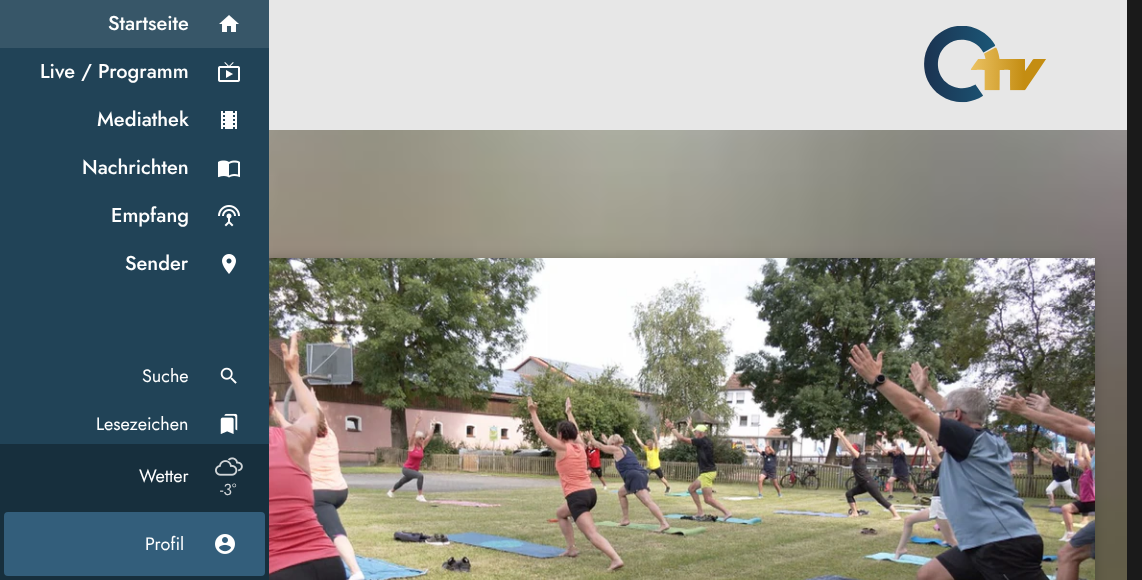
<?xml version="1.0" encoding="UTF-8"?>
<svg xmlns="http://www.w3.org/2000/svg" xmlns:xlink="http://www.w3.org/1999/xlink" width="1142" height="580">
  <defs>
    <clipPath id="clip1"><rect width="269" height="48" /></clipPath>
  </defs>
  <rect width="100%" height="100%" fill="#1a1a1a" />
  <rect x="269" width="858" height="130" fill="#e7e7e7" />
  <image x="269" y="130" width="858" height="450" xlink:href="image1.png" />
  <rect x="117" y="263" width="973" height="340" fill="#000000" fill-opacity="0.4" filter="blur(7.5px)" />
  <image x="269" y="258" width="826" height="322" xlink:href="image2.png" />
  <rect y="48" width="269" height="396" fill="#214357" />
  <g clip-path="url(#clip1)">
    <circle cx="229" cy="24" r="336" fill="#375668" />
  </g>
  <image x="219" y="15" width="20" height="17" xlink:href="image3.png" />
  <image x="218" y="62" width="22" height="20" xlink:href="image4.png" />
  <image x="221" y="111" width="16" height="18" xlink:href="image5.png" />
  <image x="218" y="160" width="22" height="18" xlink:href="image6.png" />
  <image x="218" y="205" width="22" height="22" xlink:href="image7.png" />
  <image x="222" y="254" width="14" height="20" xlink:href="image8.png" />
  <image x="220" y="367" width="17" height="17" xlink:href="image9.png" />
  <image x="220" y="413" width="18" height="21" xlink:href="image10.png" />
  <rect y="444" width="269" height="136" fill="#172f3d" />
  <image x="215" y="457" width="28" height="19" xlink:href="image11.png" />
  <rect x="4" y="512" width="261" height="64" rx="4" fill="#335e7b" />
  <image x="215" y="534" width="20" height="20" xlink:href="image12.png" />
  <image x="924" y="26" width="122" height="77" xlink:href="image13.png" />
  <text x="108" y="30" style="font-family: Jost; font-size: 20px; font-weight: 500; fill: #ffffff">Startseite</text>
  <text x="40" y="78" style="font-family: Jost; font-size: 20px; font-weight: 500; fill: #ffffff">Live / Programm</text>
  <text x="97" y="126" style="font-family: Jost; font-size: 20px; font-weight: 500; fill: #ffffff">Mediathek</text>
  <text x="82" y="174" style="font-family: Jost; font-size: 20px; font-weight: 500; fill: #ffffff">Nachrichten</text>
  <text x="111" y="222" style="font-family: Jost; font-size: 20px; font-weight: 500; fill: #ffffff">Empfang</text>
  <text x="125" y="270" style="font-family: Jost; font-size: 20px; font-weight: 500; fill: #ffffff">Sender</text>
  <text x="142" y="382" style="font-family: Jost; font-size: 18px; fill: #ffffff">Suche</text>
  <text x="96" y="430" style="font-family: Jost; font-size: 18px; fill: #ffffff">Lesezeichen</text>
  <text x="139" y="482" style="font-family: Jost; font-size: 18px; fill: #ffffff">Wetter</text>
  <text x="220" y="495" style="font-family: Jost; font-size: 16px; fill: #d1d5d8">-3°</text>
  <text x="145" y="550" style="font-family: Jost; font-size: 18px; fill: #ffffff">Profil</text>
</svg>
